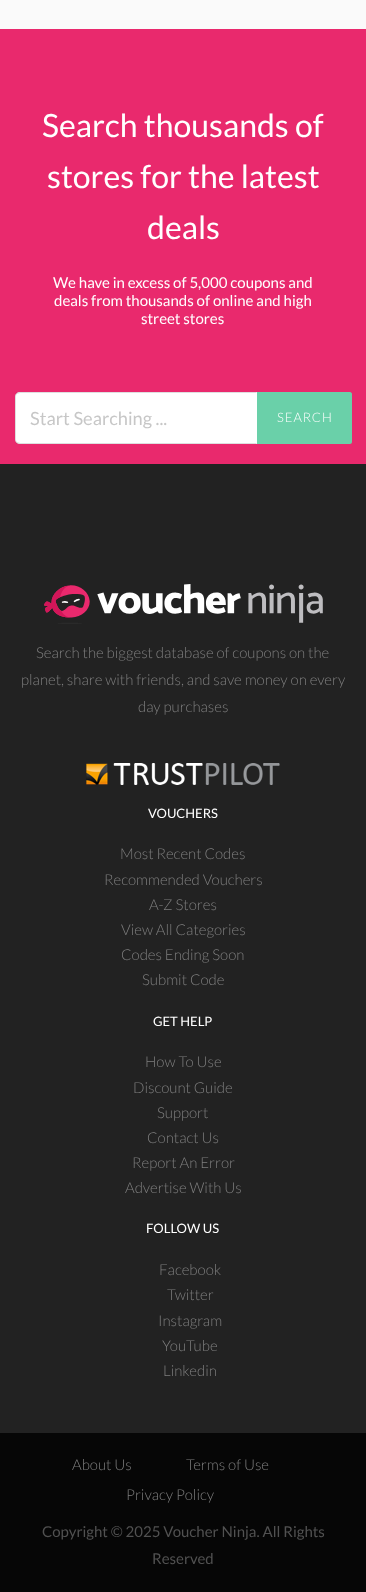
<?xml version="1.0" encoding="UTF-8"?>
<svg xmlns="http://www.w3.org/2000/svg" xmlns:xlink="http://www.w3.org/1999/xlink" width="366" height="1592">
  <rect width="100%" height="100%" fill="#fafafa" />
  <rect y="29" width="366" height="435" fill="#e9296d" />
  <path d="M 20 392 h 237 v 52 h -237 c -3 0 -5 -2 -5 -5 v -42 c 0 -3 2 -5 5 -5 z" fill="#ffffff" />
  <path d="M 20 392 c -2 0 -3 0 -4 1 l 1 1 c 1 0 2 -1 3 -1 h 236 l 1 -1 z" fill="#222426" fill-opacity="0.15" />
  <path d="M 257 444 l -1 -1 h -236 c -1 0 -2 -1 -3 -1 l -1 1 c 1 1 2 1 4 1 z" fill="#222426" fill-opacity="0.15" />
  <path d="M 15 397 v 42 c 0 1 1 3 1 4 l 1 -1 c -1 -1 -1 -2 -1 -3 v -42 c 0 -1 0 -2 1 -3 l -1 -1 c 0 1 -1 3 -1 4 z" fill="#222426" fill-opacity="0.15" />
  <path d="M 257 392 h 93 c 1 0 2 1 2 2 v 48 c 0 1 -1 2 -2 2 h -93 z" fill="#6ad0a9" />
  <rect y="464" width="366" height="969" fill="#222222" />
  <image x="44" y="584" width="279" height="40" xlink:href="image1.png" />
  <image x="86" y="763" width="194" height="22" xlink:href="image2.png" />
  <rect y="1433" width="366" height="159" fill="#060606" />
  <text x="42" y="137" style="font-family: Lato; font-size: 32px; fill: #ffffff">Search thousands of</text>
  <text x="47" y="188" style="font-family: Lato; font-size: 32px; fill: #ffffff">stores for the latest</text>
  <text x="147" y="239" style="font-family: Lato; font-size: 32px; fill: #ffffff">deals</text>
  <text x="53" y="288" style="font-family: Lato; font-size: 15px; fill: #ffffff">We have in excess of 5,000 coupons and</text>
  <text x="54" y="306" style="font-family: Lato; font-size: 15px; fill: #ffffff">deals from thousands of online and high</text>
  <text x="141" y="324" style="font-family: Lato; font-size: 15px; fill: #ffffff">street stores</text>
  <text x="30" y="425" style="font-family: Lato; font-size: 18.25px; fill: #c7c7c7">Start Searching ...</text>
  <text x="277" y="422" style="font-family: Lato; font-size: 13px; font-weight: 300; letter-spacing: 1px; fill: #ffffff">SEARCH</text>
  <text x="36" y="658" style="font-family: Lato; font-size: 15px; font-weight: 300; fill: #7e7e7e">Search the biggest database of coupons on the</text>
  <text x="21" y="685" style="font-family: Lato; font-size: 15px; font-weight: 300; fill: #7e7e7e">planet, share with friends, and save money on every</text>
  <text x="138" y="712" style="font-family: Lato; font-size: 15px; font-weight: 300; fill: #7e7e7e">day purchases</text>
  <text x="148" y="818" style="font-family: Lato; font-size: 13px; fill: #ffffff">VOUCHERS</text>
  <text x="120" y="859" style="font-family: Lato; font-size: 15px; font-weight: 300; fill: #7e7e7e">Most Recent Codes</text>
  <text x="104" y="885" style="font-family: Lato; font-size: 15px; font-weight: 300; fill: #7e7e7e">Recommended Vouchers</text>
  <text x="149" y="910" style="font-family: Lato; font-size: 15px; font-weight: 300; fill: #7e7e7e">A-Z Stores</text>
  <text x="121" y="935" style="font-family: Lato; font-size: 15px; font-weight: 300; fill: #7e7e7e">View All Categories</text>
  <text x="121" y="960" style="font-family: Lato; font-size: 15px; font-weight: 300; fill: #7e7e7e">Codes Ending Soon</text>
  <text x="142" y="985" style="font-family: Lato; font-size: 15px; font-weight: 300; fill: #7e7e7e">Submit Code</text>
  <text x="153" y="1026" style="font-family: Lato; font-size: 13px; fill: #ffffff">GET HELP</text>
  <text x="145" y="1067" style="font-family: Lato; font-size: 15px; font-weight: 300; fill: #7e7e7e">How To Use</text>
  <text x="133" y="1093" style="font-family: Lato; font-size: 15px; font-weight: 300; fill: #7e7e7e">Discount Guide</text>
  <text x="157" y="1118" style="font-family: Lato; font-size: 15px; font-weight: 300; fill: #7e7e7e">Support</text>
  <text x="147" y="1143" style="font-family: Lato; font-size: 15px; font-weight: 300; fill: #7e7e7e">Contact Us</text>
  <text x="132" y="1168" style="font-family: Lato; font-size: 15px; font-weight: 300; fill: #7e7e7e">Report An Error</text>
  <text x="125" y="1193" style="font-family: Lato; font-size: 15px; font-weight: 300; fill: #7e7e7e">Advertise With Us</text>
  <text x="146" y="1233" style="font-family: Lato; font-size: 13px; fill: #ffffff">FOLLOW US</text>
  <text x="159" y="1275" style="font-family: Lato; font-size: 15px; font-weight: 300; fill: #7e7e7e">Facebook</text>
  <text x="167" y="1300" style="font-family: Lato; font-size: 15px; font-weight: 300; fill: #7e7e7e">Twitter</text>
  <text x="158" y="1326" style="font-family: Lato; font-size: 15px; font-weight: 300; fill: #7e7e7e">Instagram</text>
  <text x="162" y="1351" style="font-family: Lato; font-size: 15px; font-weight: 300; fill: #7e7e7e">YouTube</text>
  <text x="163" y="1376" style="font-family: Lato; font-size: 15px; font-weight: 300; fill: #7e7e7e">Linkedin</text>
  <text x="72" y="1470" style="font-family: Lato; font-size: 15px; font-weight: 300; fill: #7e7e7e">About Us</text>
  <text x="186" y="1470" style="font-family: Lato; font-size: 15px; font-weight: 300; fill: #7e7e7e">Terms of Use</text>
  <text x="126" y="1500" style="font-family: Lato; font-size: 15px; font-weight: 300; fill: #7e7e7e">Privacy Policy</text>
  <text x="42" y="1537" style="font-family: Lato; font-size: 15px; fill: #515151">Copyright © 2025 Voucher Ninja. All Rights</text>
  <text x="152" y="1564" style="font-family: Lato; font-size: 15px; fill: #515151">Reserved</text>
</svg>
